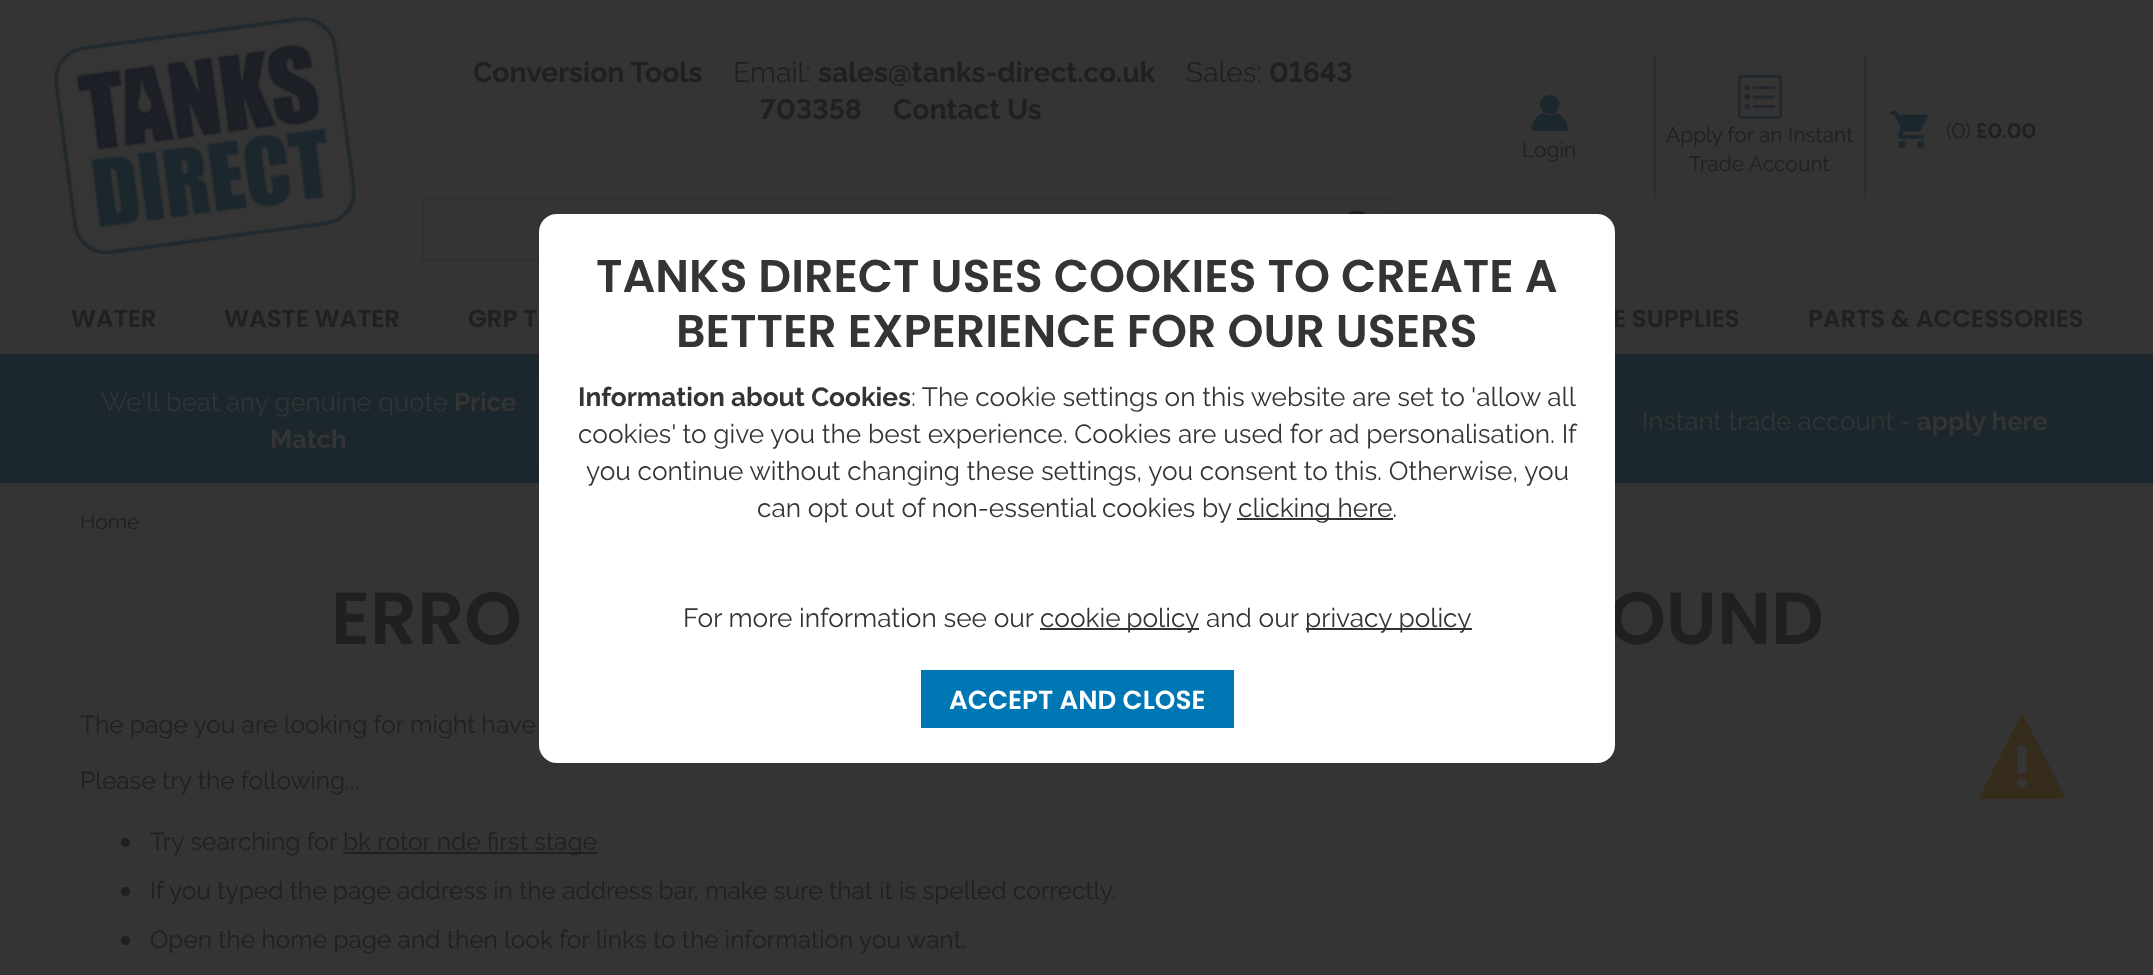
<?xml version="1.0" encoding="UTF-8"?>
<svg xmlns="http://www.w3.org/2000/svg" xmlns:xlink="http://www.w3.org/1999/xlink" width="2153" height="975">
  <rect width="100%" height="100%" fill="#343434" />
  <image x="54" y="17" width="302" height="237" xlink:href="image1.png" />
  <rect x="423" y="199" width="969" height="61" fill="none" stroke="#303030" stroke-width="2" />
  <image x="1347" y="210" width="19" height="4" xlink:href="image2.png" />
  <rect x="1654" y="56" width="2" height="142" fill="#2d2d2d" />
  <image x="1531" y="95" width="37" height="36" xlink:href="image3.png" />
  <rect x="1864" y="56" width="2" height="142" fill="#2d2d2d" />
  <rect x="1739.25" y="76.25" width="41.5" height="41.5" rx="2.75" fill="none" stroke="#20272d" stroke-width="2.5" />
  <circle cx="1747.3" cy="97.1" r="1.4" fill="none" stroke="#20272d" stroke-width="2.7" />
  <circle cx="1747.3" cy="87.6" r="1.4" fill="none" stroke="#20272d" stroke-width="2.7" />
  <circle cx="1747.3" cy="106.7" r="1.4" fill="none" stroke="#20272d" stroke-width="2.7" />
  <rect x="1753" y="86" width="22" height="3" fill="#22282e" />
  <path d="M 1753 97 h 21.5" fill="none" stroke="#20272d" stroke-width="2.7" stroke-linejoin="round" />
  <rect x="1753" y="105" width="22" height="3" fill="#22282e" />
  <image x="1890" y="110" width="38" height="39" xlink:href="image4.png" />
  <rect y="354" width="2153" height="129" fill="#1b272d" />
  <rect x="537" y="371" width="2" height="95" fill="#202a2f" />
  <image x="1979" y="712" width="87" height="87" xlink:href="image5.png" />
  <circle cx="125.5" cy="842.5" r="4.5" fill="#202020" />
  <rect x="343" y="852" width="254" height="2" fill="#202020" />
  <circle cx="125.5" cy="891.5" r="4.5" fill="#202020" />
  <circle cx="125.5" cy="940.5" r="4.5" fill="#202020" />
  <text x="473" y="82" style="font-family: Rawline; font-size: 28.25px; font-weight: bold; fill: #202020">Conversion Tools</text>
  <text x="733" y="82" style="font-family: Rawline; font-size: 28.25px; fill: #202020">Email:</text>
  <text x="818" y="82" style="font-family: Rawline; font-size: 28.25px; font-weight: bold; fill: #202020">sales@tanks-direct.co.uk</text>
  <text x="1186" y="82" style="font-family: Rawline; font-size: 28.25px; fill: #202020">Sales:</text>
  <text x="1269" y="82" style="font-family: Rawline; font-size: 28.25px; font-weight: bold; fill: #202020">01643</text>
  <text x="760" y="119" style="font-family: Rawline; font-size: 28.25px; font-weight: bold; fill: #202020">703358</text>
  <text x="893" y="119" style="font-family: Rawline; font-size: 28.25px; font-weight: bold; fill: #202020">Contact Us</text>
  <text x="1522" y="157" style="font-family: Rawline; font-size: 21px; fill: #202020">Login</text>
  <text x="1666" y="142" style="font-family: Rawline; font-size: 21px; fill: #202020">Apply for an Instant</text>
  <text x="1689" y="171" style="font-family: Rawline; font-size: 21px; fill: #202020">Trade Account</text>
  <text x="1946" y="138" style="font-family: Rawline; font-size: 21px; fill: #202020">(0)</text>
  <text x="1976" y="138" style="font-family: Rawline; font-size: 21px; font-weight: bold; fill: #202020">£0.00</text>
  <text x="71" y="327" style="font-family: Poppins; font-size: 24.5px; font-weight: 600; fill: #202020">WATER</text>
  <text x="224" y="327" style="font-family: Poppins; font-size: 24.5px; font-weight: 600; fill: #202020">WASTE WATER</text>
  <text x="468" y="327" style="font-family: Poppins; font-size: 24.5px; font-weight: 600; fill: #202020">GRP T</text>
  <text x="1613" y="327" style="font-family: Poppins; font-size: 24.5px; font-weight: 600; fill: #202020">E SUPPLIES</text>
  <text x="1808" y="327" style="font-family: Poppins; font-size: 24.5px; font-weight: 600; fill: #202020">PARTS &amp; ACCESSORIES</text>
  <text x="101" y="411" style="font-family: Rawline; font-size: 25.75px; fill: #343434">We'll beat any genuine quote</text>
  <text x="454" y="411" style="font-family: Rawline; font-size: 25.75px; font-weight: bold; fill: #343434">Price</text>
  <text x="270" y="448" style="font-family: Rawline; font-size: 25.75px; font-weight: bold; fill: #343434">Match</text>
  <text x="1642" y="430" style="font-family: Rawline; font-size: 25.75px; fill: #343434">Instant trade account -</text>
  <text x="1917" y="430" style="font-family: Rawline; font-size: 25.75px; font-weight: bold; fill: #343434">apply here</text>
  <text x="80" y="529" style="font-family: Rawline; font-size: 21px; fill: #202020">Home</text>
  <text x="331" y="644" style="font-family: Poppins; font-size: 73.5px; font-weight: 600; fill: #202020">ERRO</text>
  <text x="1608" y="644" style="font-family: Poppins; font-size: 73.5px; font-weight: 600; fill: #202020">OUND</text>
  <text x="80" y="733" style="font-family: Rawline; font-size: 24.5px; fill: #202020">The page you are looking for might have</text>
  <text x="80" y="789" style="font-family: Rawline; font-size: 24.5px; fill: #202020">Please try the following...</text>
  <text x="150" y="850" style="font-family: Rawline; font-size: 24.5px; fill: #202020">Try searching for</text>
  <text x="343" y="850" style="font-family: Rawline; font-size: 24.5px; fill: #202020">bk rotor nde first stage</text>
  <text x="150" y="899" style="font-family: Rawline; font-size: 24.5px; fill: #202020">If you typed the page address in the address bar, make sure that it is spelled correctly.</text>
  <text x="150" y="948" style="font-family: Rawline; font-size: 24.5px; fill: #202020">Open the home page and then look for links to the information you want.</text>
  <rect x="539" y="214" width="1076" height="549" rx="18" fill="#ffffff" />
  <text x="596" y="292" style="font-family: Poppins; font-size: 45.9px; font-weight: 600; fill: #343434">TANKS DIRECT USES COOKIES TO CREATE A</text>
  <text x="676" y="347" style="font-family: Poppins; font-size: 45.9px; font-weight: 600; fill: #343434">BETTER EXPERIENCE FOR OUR USERS</text>
  <text x="578" y="406" style="font-family: Rawline; font-size: 26.25px; font-weight: bold; fill: #343434">Information about Cookies</text>
  <text x="911" y="406" style="font-family: Rawline; font-size: 26.25px; fill: #343434">: The cookie settings on this website are set to 'allow all</text>
  <text x="578" y="443" style="font-family: Rawline; font-size: 26.25px; fill: #343434">cookies' to give you the best experience. Cookies are used for ad personalisation. If</text>
  <text x="586" y="480" style="font-family: Rawline; font-size: 26.25px; fill: #343434">you continue without changing these settings, you consent to this. Otherwise, you</text>
  <text x="757" y="517" style="font-family: Rawline; font-size: 26.25px; fill: #343434">can opt out of non-essential cookies by</text>
  <rect x="1237" y="518" width="156" height="2" fill="#333333" />
  <text x="1238" y="517" style="font-family: Rawline; font-size: 26.25px; fill: #343434">clicking here.</text>
  <text x="683" y="627" style="font-family: Rawline; font-size: 26.25px; fill: #343434">For more information see our</text>
  <rect x="1040" y="628" width="159" height="2" fill="#333333" />
  <text x="1040" y="627" word-spacing="-1" style="font-family: Rawline; font-size: 26.25px; fill: #343434">cookie policy</text>
  <text x="1206" y="627" style="font-family: Rawline; font-size: 26.25px; fill: #343434">and our</text>
  <rect x="1306" y="628" width="166" height="2" fill="#333333" />
  <text x="1305" y="627" style="font-family: Rawline; font-size: 26.25px; fill: #343434">privacy policy</text>
  <rect x="921" y="670" width="313" height="58" fill="#0077b5" />
  <text x="949" y="709" style="font-family: Poppins; font-size: 26.25px; font-weight: 600; fill: #ffffff">ACCEPT AND CLOSE</text>
</svg>
